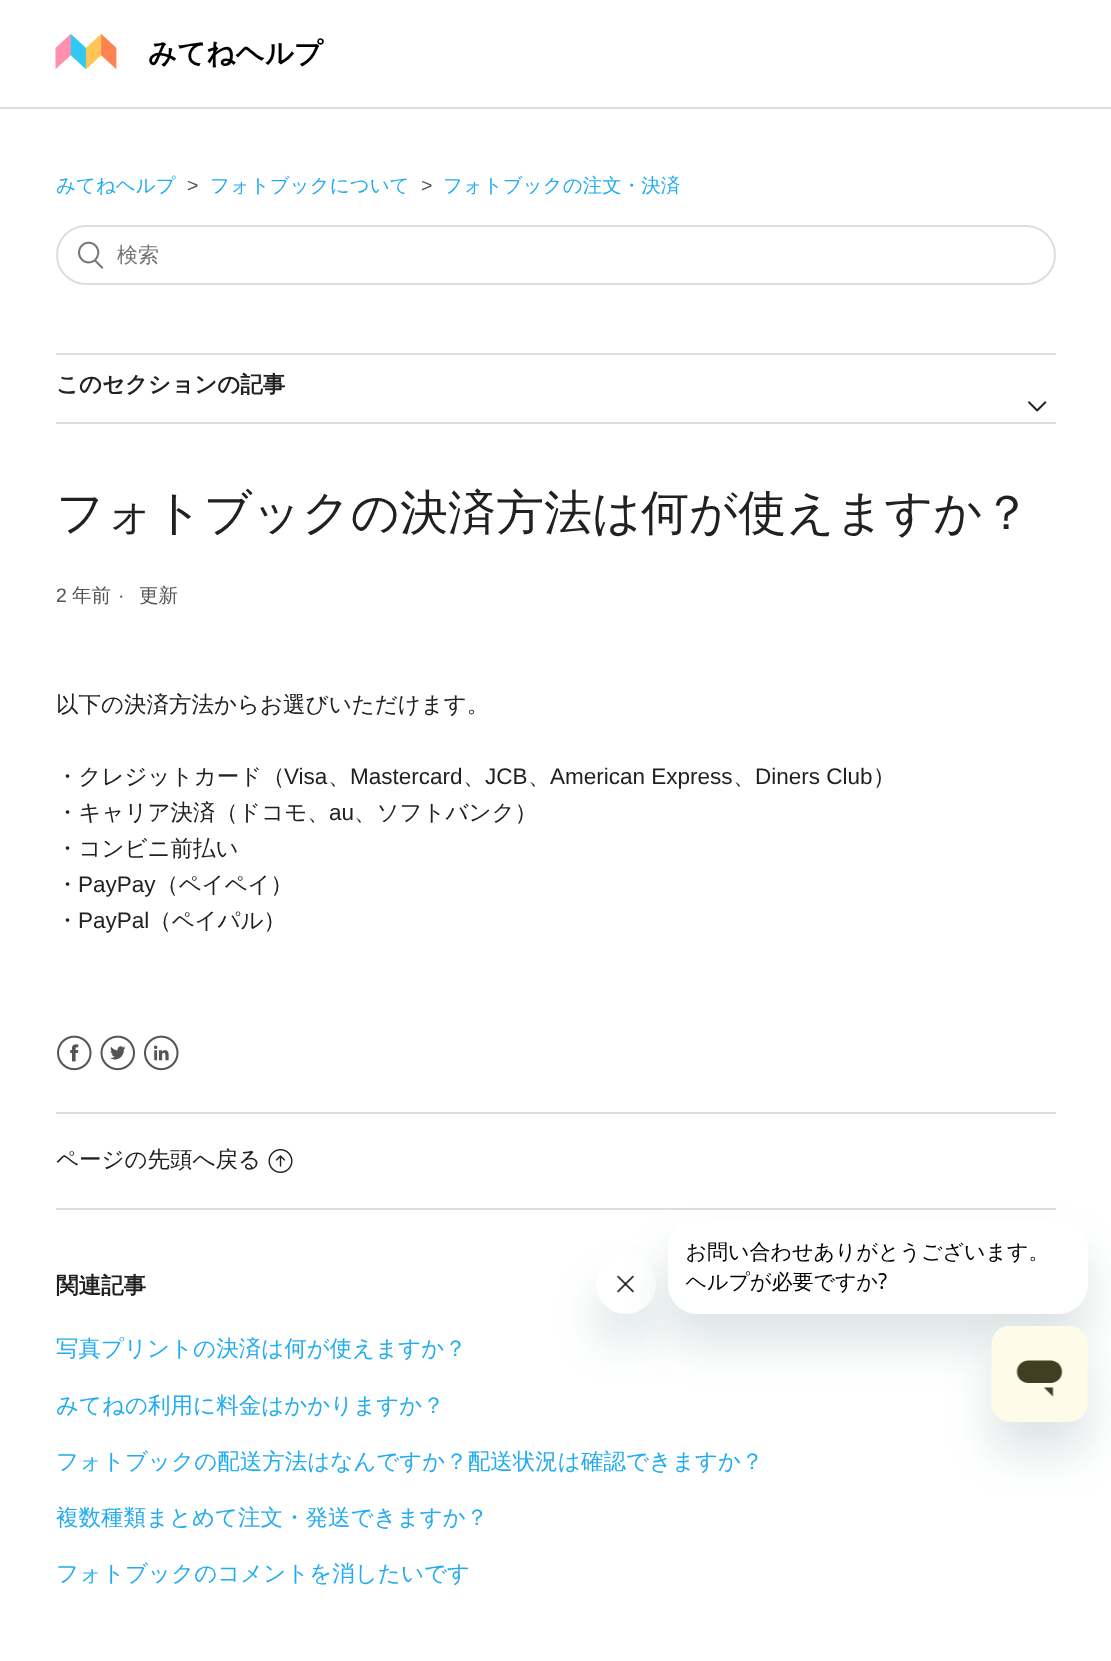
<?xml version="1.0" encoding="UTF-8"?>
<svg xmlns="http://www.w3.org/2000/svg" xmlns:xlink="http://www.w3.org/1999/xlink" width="1111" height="1661">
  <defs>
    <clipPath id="clip1"><path d="M 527 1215 h 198 v 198 h -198 z m 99 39 c 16.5 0 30 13.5 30 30 c 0 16.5 -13.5 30 -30 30 c -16.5 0 -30 -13.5 -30 -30 c 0 -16.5 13.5 -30 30 -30 z" clip-rule="evenodd" /></clipPath>
    <clipPath id="clip2"><path d="M 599 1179 h 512 v 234 h -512 z m 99 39 h 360 c 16.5 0 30 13.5 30 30 v 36 c 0 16.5 -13.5 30 -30 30 h -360 c -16.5 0 -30 -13.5 -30 -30 v -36 c 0 -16.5 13.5 -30 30 -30 z" clip-rule="evenodd" /></clipPath>
  </defs>
  <rect width="100%" height="100%" fill="#ffffff" />
  <image x="55" y="34" width="62" height="36" xlink:href="image1.png" />
  <rect y="107" width="1111" height="2" fill="#dddddd" />
  <rect x="57" y="226" width="998" height="58" rx="29" fill="none" stroke="#dddddd" stroke-width="2" />
  <image x="78" y="241" width="26" height="28" xlink:href="image2.png" />
  <rect x="56" y="353" width="1000" height="2" fill="#dddddd" />
  <rect x="56" y="422" width="1000" height="2" fill="#dddddd" />
  <image x="1028" y="401" width="19" height="11" xlink:href="image3.png" />
  <image x="57" y="1035" width="35" height="36" xlink:href="image4.png" />
  <image x="100" y="1035" width="35" height="36" xlink:href="image5.png" />
  <image x="144" y="1035" width="35" height="36" xlink:href="image6.png" />
  <rect x="56" y="1112" width="1000" height="2" fill="#dddddd" />
  <image x="268" y="1149" width="25" height="24" xlink:href="image7.png" />
  <rect x="56" y="1208" width="1000" height="2" fill="#dddddd" />
  <g clip-path="url(#clip1)">
    <rect x="596" y="1284" width="60" height="60" rx="30" fill="#17494d" fill-opacity="0.15" filter="blur(22.5px)" />
  </g>
  <image x="616" y="1275" width="19" height="18" xlink:href="image9.png" />
  <g clip-path="url(#clip2)">
    <rect x="668" y="1248" width="420" height="96" rx="30" fill="#17494d" fill-opacity="0.15" filter="blur(22.5px)" />
  </g>
  <image x="668" y="1241" width="395" height="73" xlink:href="image8.png" />
  <rect x="992" y="1356" width="96" height="96" rx="18" fill="#17494d" fill-opacity="0.15" filter="blur(22.5px)" />
  <image x="991" y="1326" width="97" height="96" xlink:href="image10.png" />
  <text x="148" y="63" style="font-family: WenQuanYi Zen Hei; font-size: 28.5px; font-weight: bold; fill: #000000">みてねヘルプ</text>
  <text x="56" y="192" style="font-family: WenQuanYi Zen Hei; font-size: 19.5px; font-weight: 500; fill: #22acf0">みてねヘルプ</text>
  <text x="187" y="192" style="font-family: Liberation Sans; font-size: 19.5px; fill: #545454">&gt;</text>
  <text x="210" y="192" style="font-family: WenQuanYi Zen Hei; font-size: 19.5px; font-weight: 500; fill: #22acf0">フォトブックについて</text>
  <text x="421" y="192" style="font-family: Liberation Sans; font-size: 19.5px; fill: #545454">&gt;</text>
  <text x="443" y="192" style="font-family: WenQuanYi Zen Hei; font-size: 19.5px; font-weight: 500; fill: #22acf0">フォトブックの注文・決済</text>
  <text x="117" y="262" style="font-family: WenQuanYi Zen Hei; font-size: 21px; font-weight: 500; fill: #757575">検索</text>
  <text x="56" y="392" style="font-family: WenQuanYi Zen Hei; font-size: 22.5px; font-weight: bold; fill: #212121">このセクションの記事</text>
  <text x="56" y="529" style="font-family: WenQuanYi Zen Hei; font-size: 48px; font-weight: 500; fill: #212121">フォトブックの決済方法は何が使えますか？</text>
  <text x="56" y="602" style="font-family: Liberation Sans; font-size: 19.5px; fill: #545454">2</text>
  <text x="72" y="602" style="font-family: WenQuanYi Zen Hei; font-size: 19.5px; font-weight: 500; fill: #545454">年前</text>
  <text x="118" y="602" style="font-family: Liberation Sans; font-size: 19.5px; fill: #545454">·</text>
  <text x="139" y="602" style="font-family: WenQuanYi Zen Hei; font-size: 19.5px; font-weight: 500; fill: #545454">更新</text>
  <text x="56" y="712" style="font-family: WenQuanYi Zen Hei; font-size: 22.5px; font-weight: 500; fill: #212121">以下の決済方法からお選びいただけます。</text>
  <text x="56" y="784" style="font-family: WenQuanYi Zen Hei; font-size: 22.5px; font-weight: 500; fill: #212121">・クレジットカード（</text>
  <text x="284" y="784" style="font-family: Liberation Sans; font-size: 22.5px; fill: #212121">Visa</text>
  <text x="328" y="784" style="font-family: WenQuanYi Zen Hei; font-size: 22.5px; font-weight: 500; fill: #212121">、</text>
  <text x="350" y="784" style="font-family: Liberation Sans; font-size: 22.5px; fill: #212121">Mastercard</text>
  <text x="463" y="784" style="font-family: WenQuanYi Zen Hei; font-size: 22.5px; font-weight: 500; fill: #212121">、</text>
  <text x="485" y="784" style="font-family: Liberation Sans; font-size: 22.5px; fill: #212121">JCB</text>
  <text x="528" y="784" style="font-family: WenQuanYi Zen Hei; font-size: 22.5px; font-weight: 500; fill: #212121">、</text>
  <text x="550" y="784" style="font-family: Liberation Sans; font-size: 22.5px; fill: #212121">American Express</text>
  <text x="733" y="784" style="font-family: WenQuanYi Zen Hei; font-size: 22.5px; font-weight: 500; fill: #212121">、</text>
  <text x="755" y="784" style="font-family: Liberation Sans; font-size: 22.5px; fill: #212121">Diners Club</text>
  <text x="873" y="784" style="font-family: WenQuanYi Zen Hei; font-size: 22.5px; font-weight: 500; fill: #212121">）</text>
  <text x="56" y="820" style="font-family: WenQuanYi Zen Hei; font-size: 22.5px; font-weight: 500; fill: #212121">・キャリア決済（ドコモ、</text>
  <text x="329" y="820" style="font-family: Liberation Sans; font-size: 22.5px; fill: #212121">au</text>
  <text x="354" y="820" style="font-family: WenQuanYi Zen Hei; font-size: 22.5px; font-weight: 500; fill: #212121">、ソフトバンク）</text>
  <text x="56" y="856" style="font-family: WenQuanYi Zen Hei; font-size: 22.5px; font-weight: 500; fill: #212121">・コンビニ前払い</text>
  <text x="56" y="892" style="font-family: WenQuanYi Zen Hei; font-size: 22.5px; font-weight: 500; fill: #212121">・</text>
  <text x="78" y="892" style="font-family: Liberation Sans; font-size: 22.5px; fill: #212121">PayPay</text>
  <text x="156" y="892" style="font-family: WenQuanYi Zen Hei; font-size: 22.5px; font-weight: 500; fill: #212121">（ペイペイ）</text>
  <text x="56" y="928" style="font-family: WenQuanYi Zen Hei; font-size: 22.5px; font-weight: 500; fill: #212121">・</text>
  <text x="78" y="928" style="font-family: Liberation Sans; font-size: 22.5px; fill: #212121">PayPal</text>
  <text x="149" y="928" style="font-family: WenQuanYi Zen Hei; font-size: 22.5px; font-weight: 500; fill: #212121">（ペイパル）</text>
  <text x="56" y="1167" style="font-family: WenQuanYi Zen Hei; font-size: 22.5px; font-weight: 500; fill: #212121">ページの先頭へ戻る</text>
  <text x="56" y="1293" style="font-family: WenQuanYi Zen Hei; font-size: 22.5px; font-weight: bold; fill: #212121">関連記事</text>
  <text x="56" y="1356" style="font-family: WenQuanYi Zen Hei; font-size: 22.5px; font-weight: 500; fill: #22acf0">写真プリントの決済は何が使えますか？</text>
  <text x="56" y="1413" style="font-family: WenQuanYi Zen Hei; font-size: 22.5px; font-weight: 500; fill: #22acf0">みてねの利用に料金はかかりますか？</text>
  <text x="56" y="1469" style="font-family: WenQuanYi Zen Hei; font-size: 22.5px; font-weight: 500; fill: #22acf0">フォトブックの配送方法はなんですか？配送状況は確認できますか？</text>
  <text x="56" y="1525" style="font-family: WenQuanYi Zen Hei; font-size: 22.5px; font-weight: 500; fill: #22acf0">複数種類まとめて注文・発送できますか？</text>
  <text x="56" y="1581" style="font-family: WenQuanYi Zen Hei; font-size: 22.5px; font-weight: 500; fill: #22acf0">フォトブックのコメントを消したいです</text>
</svg>
